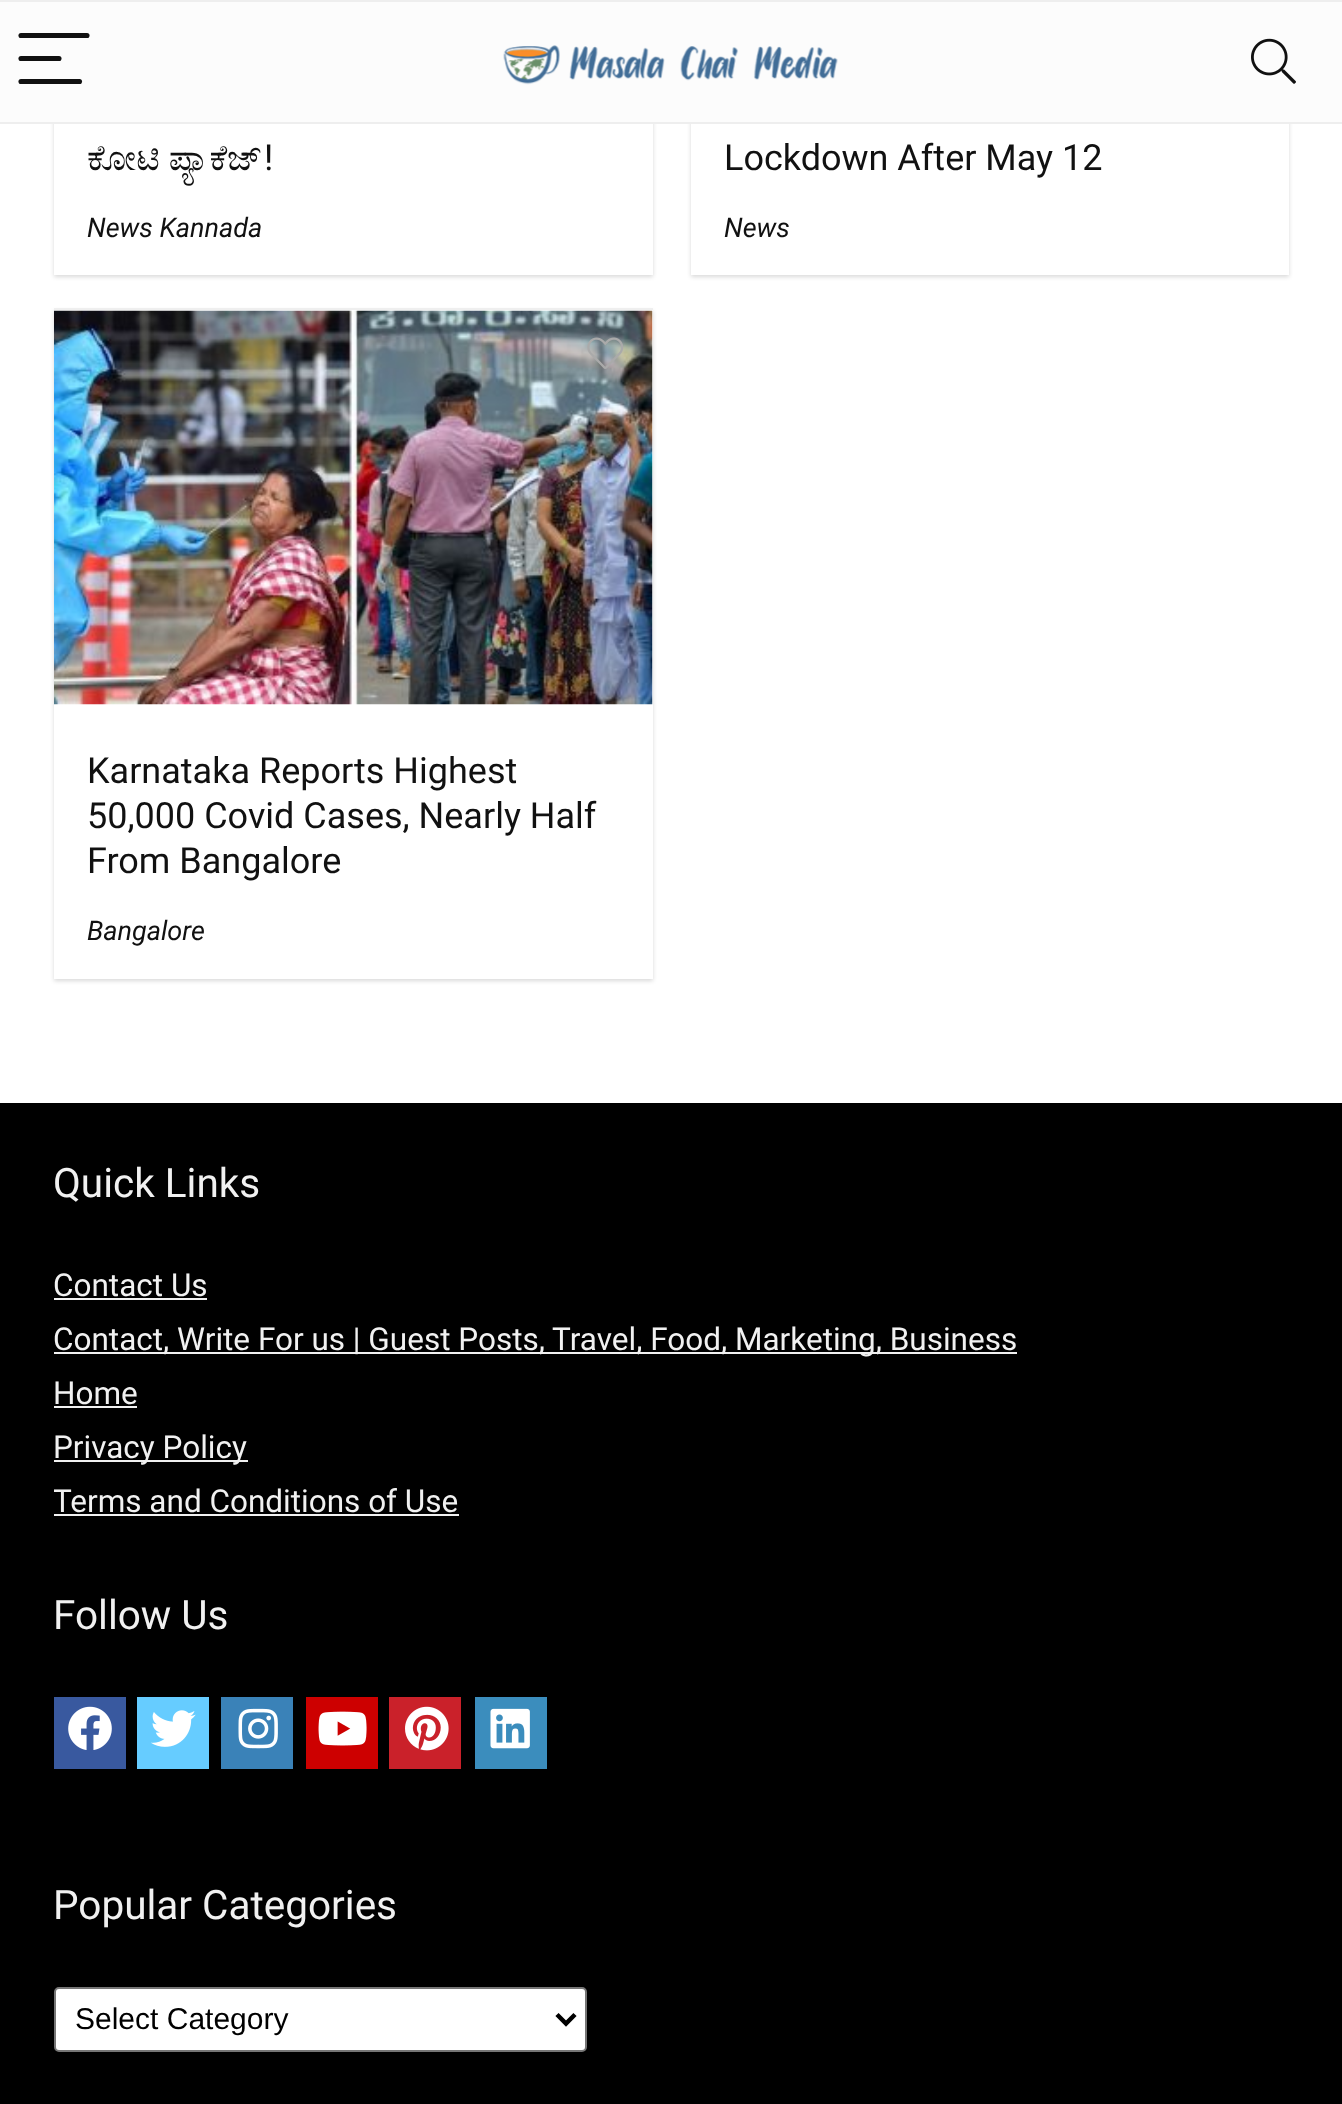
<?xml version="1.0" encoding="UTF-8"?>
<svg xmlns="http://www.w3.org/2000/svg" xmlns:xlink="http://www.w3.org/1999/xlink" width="1342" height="2104">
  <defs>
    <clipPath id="clip1"><rect x="54" y="1159" width="1238" height="376" /></clipPath>
  </defs>
  <rect width="100%" height="100%" fill="#ffffff" />
  <rect x="54" y="-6" width="599" height="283" fill="#000000" fill-opacity="0.15" filter="blur(2px)" />
  <rect x="691" y="-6" width="598" height="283" fill="#000000" fill-opacity="0.15" filter="blur(2px)" />
  <rect y="2" width="1342" height="120" fill="#fcfcfc" />
  <rect width="1342" height="2" fill="#eeeeee" />
  <rect y="122" width="1342" height="2" fill="#eeeeee" />
  <path d="M 21 35.5 h 66" fill="none" stroke="#111111" stroke-width="5.1" stroke-linecap="round" />
  <path d="M 21 58.5 h 38" fill="none" stroke="#111111" stroke-width="5.1" stroke-linecap="round" />
  <path d="M 21 81.5 h 58.5" fill="none" stroke="#111111" stroke-width="5.1" stroke-linecap="round" />
  <image x="503" y="45" width="335" height="40" xlink:href="image1.png" />
  <image x="1251" y="38" width="45" height="46" xlink:href="image2.png" />
  <rect x="54" y="124" width="599" height="151" fill="#ffffff" />
  <rect x="691" y="124" width="598" height="151" fill="#ffffff" />
  <rect x="54" y="311" width="599" height="670" fill="#000000" fill-opacity="0.15" filter="blur(2px)" />
  <rect x="54" y="310" width="599" height="669" fill="#ffffff" />
  <rect x="54" y="308" width="599" height="2" fill="#efefef" />
  <image x="54" y="310" width="599" height="395" xlink:href="image3.png" />
  <image x="587" y="337" width="36" height="32" xlink:href="image4.png" />
  <rect y="1103" width="1342" height="1001" fill="#000000" />
  <rect x="54" y="1298" width="153" height="2" fill="#f1f1f1" />
  <rect x="54" y="1352" width="963" height="2" fill="#f1f1f1" />
  <rect x="54" y="1406" width="83" height="2" fill="#f1f1f1" />
  <rect x="54" y="1460" width="194" height="2" fill="#f1f1f1" />
  <rect x="54" y="1514" width="405" height="2" fill="#f1f1f1" />
  <rect x="54" y="1697" width="72" height="72" fill="#39599f" />
  <image x="68" y="1706" width="44" height="44" xlink:href="image5.png" />
  <rect x="137" y="1697" width="72" height="72" fill="#66ccff" />
  <image x="151" y="1710" width="45" height="37" xlink:href="image6.png" />
  <rect x="221" y="1697" width="72" height="72" fill="#3a82b8" />
  <image x="238" y="1708" width="40" height="41" xlink:href="image7.png" />
  <rect x="306" y="1697" width="72" height="72" fill="#cd0000" />
  <image x="318" y="1711" width="49" height="35" xlink:href="image8.png" />
  <rect x="389" y="1697" width="72" height="72" fill="#ca212a" />
  <image x="405" y="1706" width="44" height="45" xlink:href="image9.png" />
  <rect x="475" y="1697" width="72" height="72" fill="#3b8dbd" />
  <image x="490" y="1708" width="40" height="41" xlink:href="image10.png" />
  <rect x="55" y="1988" width="531" height="63" rx="4" fill="#ffffff" stroke="#767676" stroke-width="2" />
  <path d="M 557 2014.5 l 9 9 l 9 -9" fill="none" stroke="#000000" stroke-width="4.5" />
  <text x="87" y="170" style="font-family: FreeSerif; font-size: 36px; fill: #111111">ಕೋಟಿ ಪ್ಯಾಕೆಜ್</text>
  <text x="264" y="170" style="font-family: Roboto; font-size: 36px; fill: #111111">!</text>
  <text x="87" y="237" style="font-family: Roboto; font-size: 27px; font-style: italic; fill: #111111">News Kannada</text>
  <text x="724" y="170" style="font-family: Roboto; font-size: 36px; fill: #111111">Lockdown After May 12</text>
  <text x="724" y="237" style="font-family: Roboto; font-size: 27px; font-style: italic; fill: #111111">News</text>
  <text x="87" y="783" style="font-family: Roboto; font-size: 36px; fill: #111111">Karnataka Reports Highest</text>
  <text x="87" y="828" style="font-family: Roboto; font-size: 36px; fill: #111111">50,000 Covid Cases, Nearly Half</text>
  <text x="87" y="873" style="font-family: Roboto; font-size: 36px; fill: #111111">From Bangalore</text>
  <text x="87" y="940" style="font-family: Roboto; font-size: 27px; font-style: italic; fill: #111111">Bangalore</text>
  <text x="53" y="1197" style="font-family: Roboto; font-size: 40.5px; fill: #f1f1f1">Quick Links</text>
  <text x="53" y="1296" style="font-family: Roboto; font-size: 31.5px; fill: #f1f1f1">Contact Us</text>
  <text x="53" y="1350" style="font-family: Roboto; font-size: 31.5px; fill: #f1f1f1">Contact, Write For us | Guest Posts, Travel, Food, Marketing, Business</text>
  <text x="53" y="1404" style="font-family: Roboto; font-size: 31.5px; fill: #f1f1f1">Home</text>
  <text x="53" y="1458" style="font-family: Roboto; font-size: 31.5px; fill: #f1f1f1">Privacy Policy</text>
  <g clip-path="url(#clip1)">
    <text x="53" y="1512" style="font-family: Roboto; font-size: 31.5px; fill: #f1f1f1">Terms and Conditions of Use</text>
  </g>
  <text x="53" y="1629" style="font-family: Roboto; font-size: 40.5px; fill: #f1f1f1">Follow Us</text>
  <text x="53" y="1919" style="font-family: Roboto; font-size: 40.5px; fill: #f1f1f1">Popular Categories</text>
  <text x="75" y="2029" style="font-family: Liberation Sans; font-size: 30px; fill: #000000">Select Category</text>
</svg>
